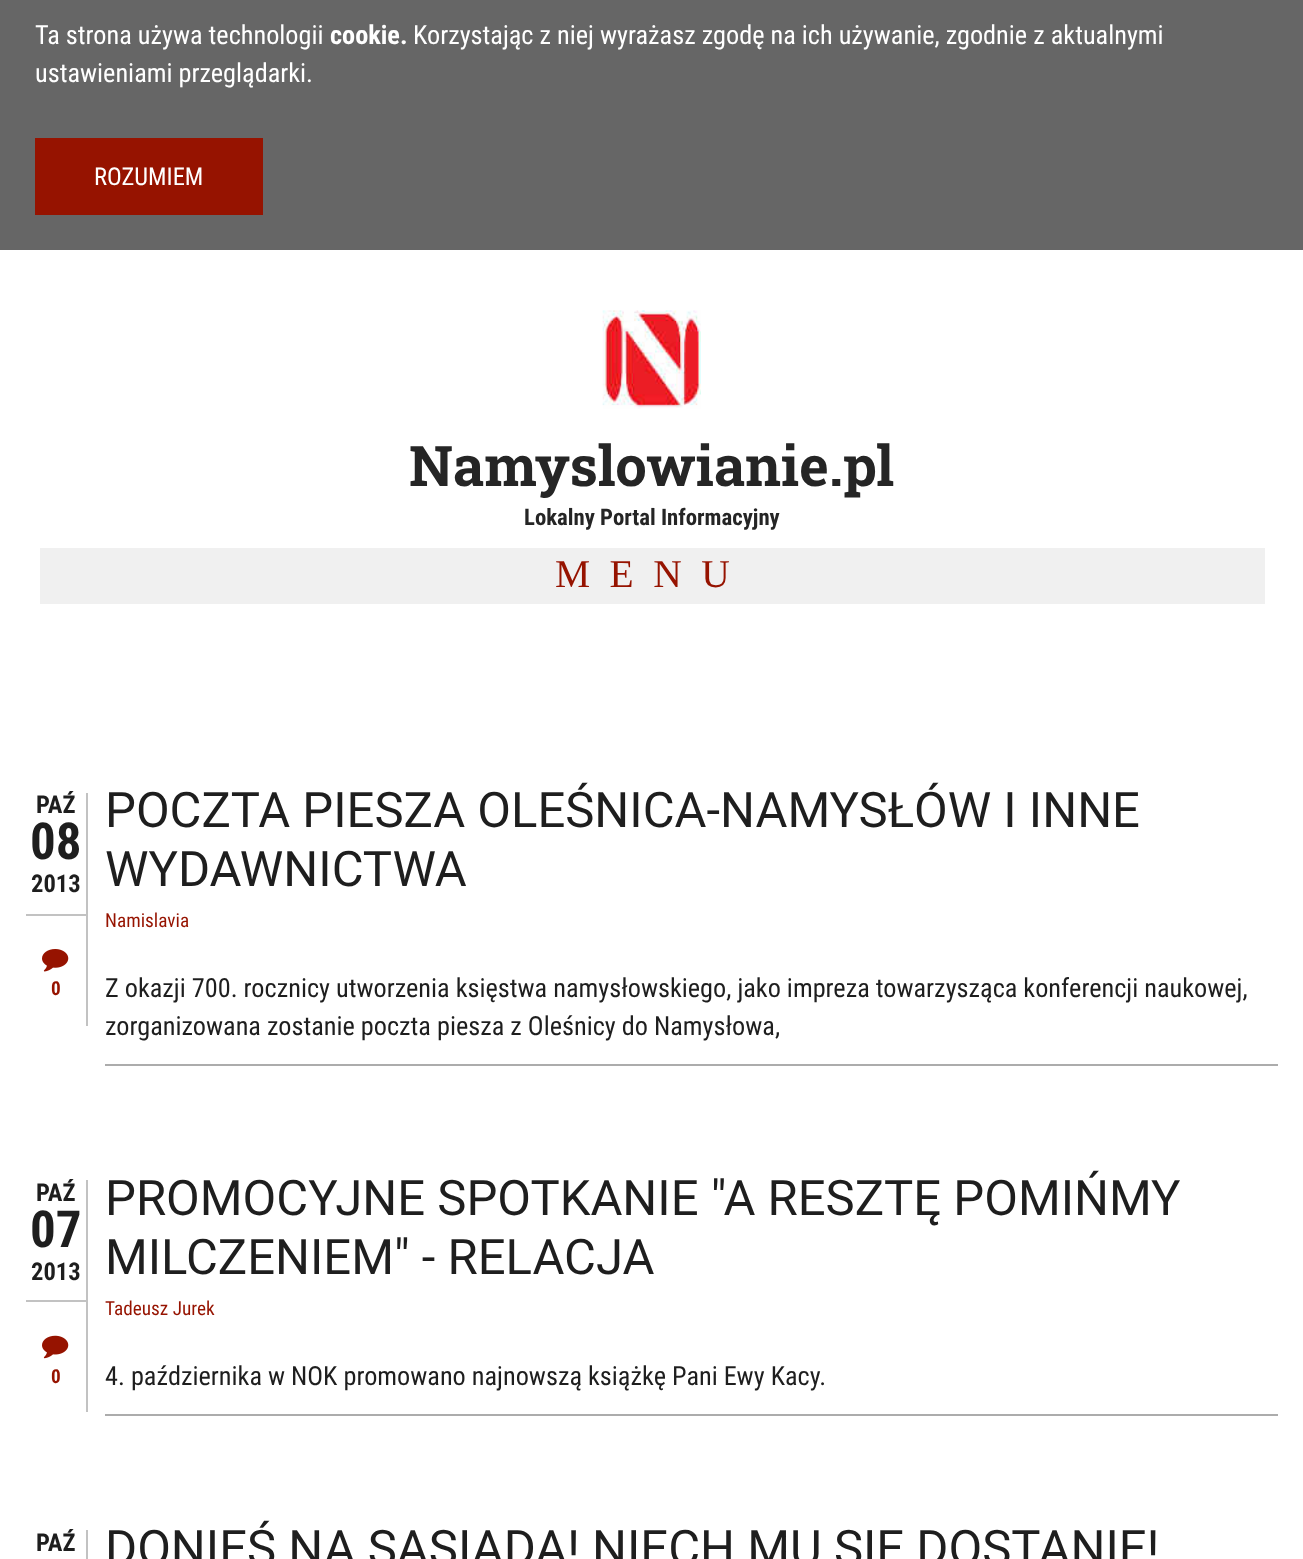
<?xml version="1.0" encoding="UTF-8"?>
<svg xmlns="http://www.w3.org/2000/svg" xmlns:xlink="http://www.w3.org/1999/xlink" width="1303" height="1559">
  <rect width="100%" height="100%" fill="#ffffff" />
  <rect width="1303" height="250" fill="#666666" />
  <rect x="35" y="138" width="228" height="77" fill="#961300" />
  <image x="602" y="310" width="99" height="99" xlink:href="image1.png" />
  <rect x="40" y="548" width="1225" height="56" fill="#f0f0f0" />
  <rect x="86" y="793" width="2" height="121" fill="#c2c2c2" />
  <rect x="26" y="914" width="62" height="2" fill="#c2c2c2" />
  <rect x="86" y="914" width="2" height="112" fill="#c2c2c2" />
  <image x="42" y="949" width="27" height="23" xlink:href="image2.png" />
  <rect x="105" y="1064" width="1173" height="2" fill="#acacac" />
  <rect x="86" y="1180" width="2" height="120" fill="#c2c2c2" />
  <rect x="26" y="1300" width="62" height="2" fill="#c2c2c2" />
  <rect x="86" y="1300" width="2" height="112" fill="#c2c2c2" />
  <image x="42" y="1335" width="27" height="24" xlink:href="image3.png" />
  <rect x="105" y="1414" width="1173" height="2" fill="#acacac" />
  <rect x="86" y="1530" width="2" height="29" fill="#c2c2c2" />
  <text x="35" y="44" style="font-family: Roboto Condensed; font-size: 26.25px; fill: #ffffff">Ta strona używa technologii</text>
  <text x="330" y="44" style="font-family: Roboto Condensed; font-size: 26.25px; font-weight: bold; fill: #ffffff">cookie.</text>
  <text x="413" y="44" style="font-family: Roboto Condensed; font-size: 26.25px; fill: #ffffff">Korzystając z niej wyrażasz zgodę na ich używanie, zgodnie z aktualnymi</text>
  <text x="35" y="82" style="font-family: Roboto Condensed; font-size: 26.25px; fill: #ffffff">ustawieniami przeglądarki.</text>
  <text x="94" y="185" style="font-family: Roboto Condensed; font-size: 24.5px; fill: #ffffff">ROZUMIEM</text>
  <text x="409" y="486" style="font-family: Roboto Slab; font-size: 56px; font-weight: bold; fill: #252525">Namyslowianie.pl</text>
  <text x="524" y="525" style="font-family: Roboto Condensed; font-size: 22.75px; font-weight: bold; fill: #252525">Lokalny Portal Informacyjny</text>
  <text x="555" y="587" style="font-family: Liberation Serif; font-size: 39.5px; letter-spacing: 19.5px; fill: #961300">MENU</text>
  <text x="36" y="813" style="font-family: Roboto Condensed; font-size: 24.5px; font-weight: bold; fill: #1e1e1e">PAŹ</text>
  <text x="30" y="859" style="font-family: Roboto Condensed; font-size: 51px; font-weight: bold; fill: #1e1e1e">08</text>
  <text x="31" y="892" style="font-family: Roboto Condensed; font-size: 24.5px; font-weight: bold; fill: #1e1e1e">2013</text>
  <text x="51" y="995" style="font-family: Roboto Condensed; font-size: 19.25px; font-weight: bold; fill: #961300">0</text>
  <text x="105" y="827" style="font-family: Roboto; font-size: 49px; fill: #1e1e1e">POCZTA PIESZA OLEŚNICA-NAMYSŁÓW I INNE</text>
  <text x="105" y="886" style="font-family: Roboto; font-size: 49px; fill: #1e1e1e">WYDAWNICTWA</text>
  <text x="105" y="927" style="font-family: Roboto Condensed; font-size: 19.25px; fill: #961300">Namislavia</text>
  <text x="105" y="997" style="font-family: Roboto Condensed; font-size: 26.25px; fill: #1e1e1e">Z okazji 700. rocznicy utworzenia księstwa namysłowskiego, jako impreza towarzysząca konferencji naukowej,</text>
  <text x="105" y="1035" style="font-family: Roboto Condensed; font-size: 26.25px; fill: #1e1e1e">zorganizowana zostanie poczta piesza z Oleśnicy do Namysłowa,</text>
  <text x="36" y="1201" style="font-family: Roboto Condensed; font-size: 24.5px; font-weight: bold; fill: #1e1e1e">PAŹ</text>
  <text x="30" y="1247" style="font-family: Roboto Condensed; font-size: 51px; font-weight: bold; fill: #1e1e1e">07</text>
  <text x="31" y="1280" style="font-family: Roboto Condensed; font-size: 24.5px; font-weight: bold; fill: #1e1e1e">2013</text>
  <text x="51" y="1383" style="font-family: Roboto Condensed; font-size: 19.25px; font-weight: bold; fill: #961300">0</text>
  <text x="105" y="1215" style="font-family: Roboto; font-size: 49px; fill: #1e1e1e">PROMOCYJNE SPOTKANIE "A RESZTĘ POMIŃMY</text>
  <text x="105" y="1274" style="font-family: Roboto; font-size: 49px; fill: #1e1e1e">MILCZENIEM" - RELACJA</text>
  <text x="105" y="1315" style="font-family: Roboto Condensed; font-size: 19.25px; fill: #961300">Tadeusz Jurek</text>
  <text x="105" y="1385" style="font-family: Roboto Condensed; font-size: 26.25px; fill: #1e1e1e">4. października w NOK promowano najnowszą książkę Pani Ewy Kacy.</text>
  <text x="36" y="1551" style="font-family: Roboto Condensed; font-size: 24.5px; font-weight: bold; fill: #1e1e1e">PAŹ</text>
  <text x="105" y="1565" style="font-family: Roboto; font-size: 49px; fill: #1e1e1e">DONIEŚ NA SĄSIADA! NIECH MU SIĘ DOSTANIE!</text>
</svg>
